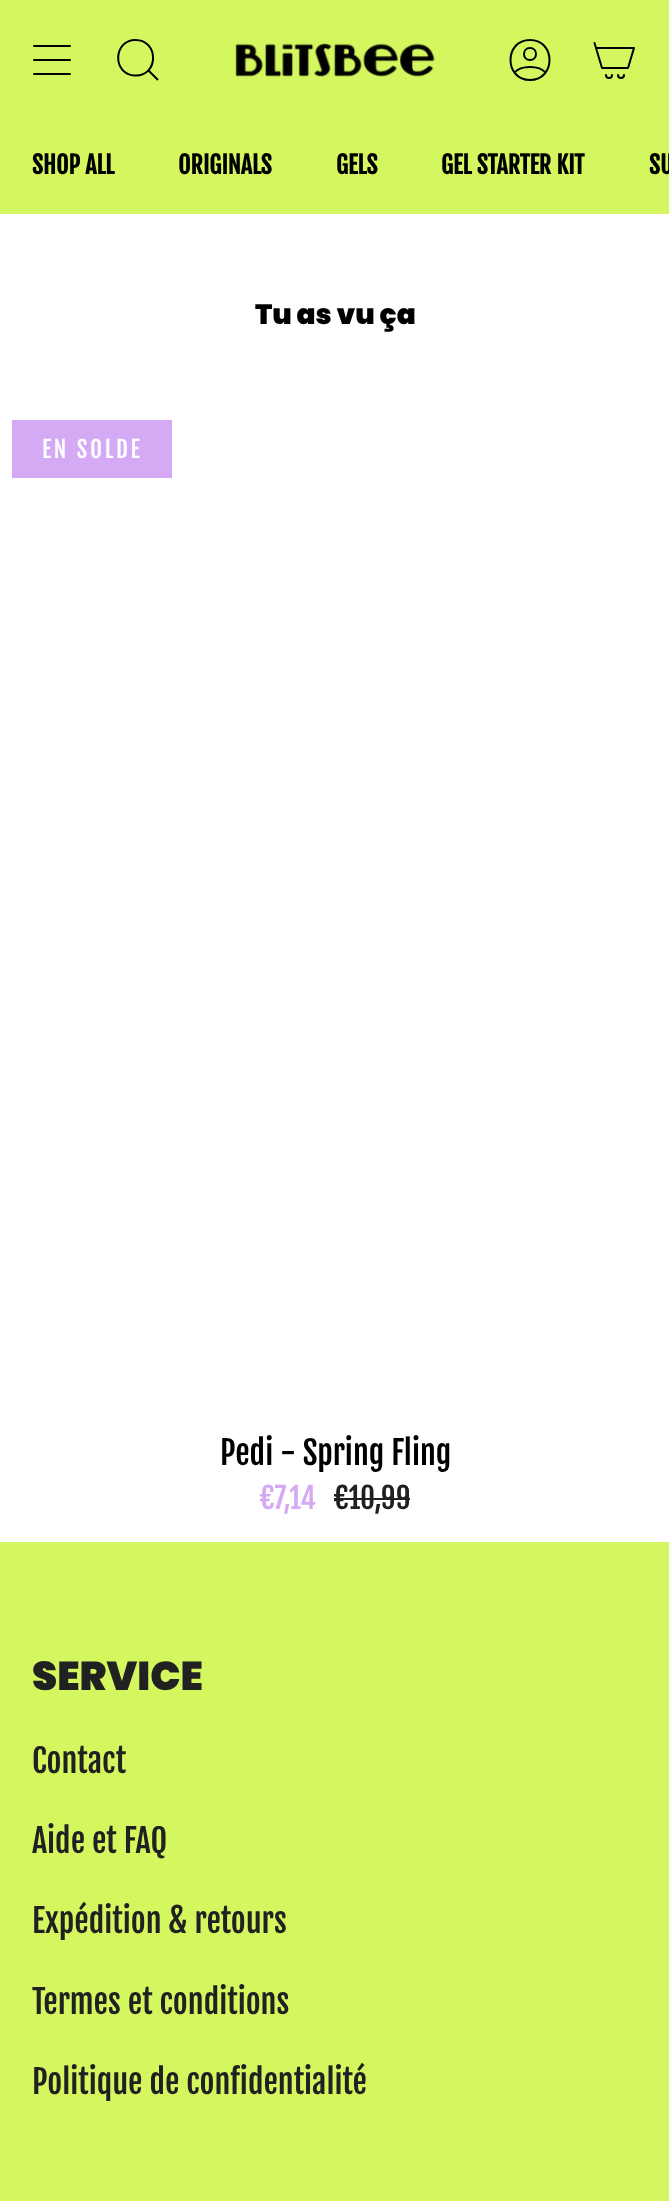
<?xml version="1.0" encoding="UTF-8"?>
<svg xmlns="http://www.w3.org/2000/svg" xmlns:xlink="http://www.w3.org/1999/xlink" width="669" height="2201">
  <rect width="100%" height="100%" fill="#ffffff" />
  <rect width="669" height="214" fill="#d4f760" />
  <path d="M 34 46 h 36 m -36 14 h 36 m -36 14 h 36" fill="none" stroke="#000000" stroke-width="2" stroke-linecap="round" stroke-linejoin="round" />
  <path d="M 135.5 40 c 23.5 0 23.5 36.5 -0.5 35.5 c -23 -1 -22 -35.5 0.5 -35.5 z m 12.5 30 l 10 10" fill="none" stroke="#000000" stroke-width="2" />
  <image x="235" y="43" width="200" height="34" xlink:href="image1.png" />
  <path d="M 530 40 c -26 0 -26 40 0 40 c 26 0 26 -40 0 -40 z m -15.5 32.5 c 6 -7.5 25 -7.5 31 0 m -15.5 -12.5 c 8 0 8 -12 0 -12 c -8 0 -8 12 0 12 z" fill="none" stroke="#000000" stroke-width="2" stroke-linecap="round" stroke-linejoin="round" />
  <path d="M 596 48 h 38 l -6 20 h -26 z m 0 0 l -1.5 -5 m 17.5 32 c 0 4 -6 4 -6 0 m 18 0 c 0 4 -6 4 -6 0" fill="none" stroke="#000000" stroke-width="2" stroke-linecap="round" stroke-linejoin="round" />
  <rect x="12" y="420" width="160" height="58" fill="#d4aaf5" />
  <rect x="334" y="1498" width="76" height="2" fill="#212121" />
  <rect y="1542" width="669" height="659" fill="#d4f760" />
  <text x="32" y="174" style="font-family: Fjalla One; font-size: 24px; font-weight: bold; fill: #000000">SHOP ALL</text>
  <text x="178" y="174" style="font-family: Fjalla One; font-size: 24px; font-weight: bold; fill: #000000">ORIGINALS</text>
  <text x="336" y="174" style="font-family: Fjalla One; font-size: 24px; font-weight: bold; fill: #000000">GELS</text>
  <text x="441" y="174" style="font-family: Fjalla One; font-size: 24px; font-weight: bold; fill: #000000">GEL STARTER KIT</text>
  <text x="649" y="174" style="font-family: Fjalla One; font-size: 24px; font-weight: bold; fill: #000000">SU</text>
  <text x="255" y="324" style="font-family: Poppins; font-size: 28px; font-weight: 900; fill: #000000">Tu as vu ça</text>
  <text x="42" y="458" style="font-family: Fjalla One; font-size: 23px; letter-spacing: 2.75px; fill: #ffffff">EN SOLDE</text>
  <text x="220" y="1465" style="font-family: Fjalla One; font-size: 32.25px; fill: #000000">Pedi - Spring Fling</text>
  <text x="260" y="1509" style="font-family: Fjalla One; font-size: 29px; fill: #d4aaf5">€7,14</text>
  <text x="334" y="1509" style="font-family: Fjalla One; font-size: 29px; fill: #212121">€10,99</text>
  <text x="32" y="1690" style="font-family: Poppins; font-size: 40.25px; font-weight: 900; fill: #212121">SERVICE</text>
  <text x="32" y="1773" style="font-family: Fjalla One; font-size: 32.25px; fill: #212121">Contact</text>
  <text x="32" y="1853" style="font-family: Fjalla One; font-size: 32.25px; fill: #212121">Aide et FAQ</text>
  <text x="32" y="1933" style="font-family: Fjalla One; font-size: 32.25px; fill: #212121">Expédition &amp; retours</text>
  <text x="32" y="2014" style="font-family: Fjalla One; font-size: 32.25px; fill: #212121">Termes et conditions</text>
  <text x="32" y="2094" style="font-family: Fjalla One; font-size: 32.25px; fill: #212121">Politique de confidentialité</text>
</svg>
